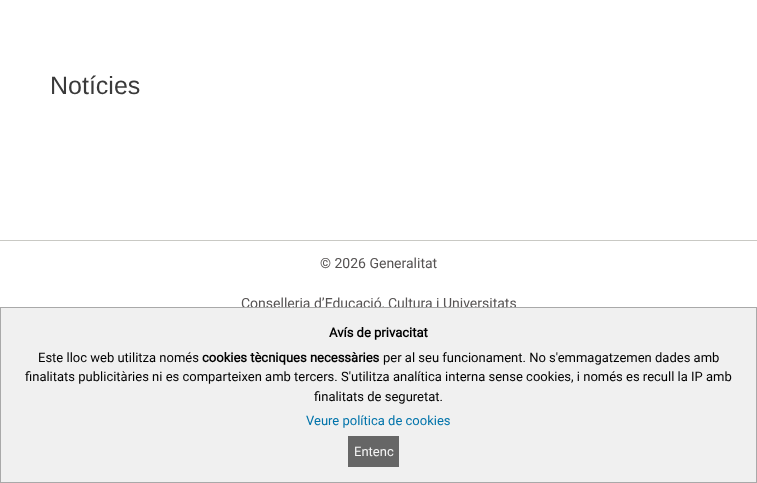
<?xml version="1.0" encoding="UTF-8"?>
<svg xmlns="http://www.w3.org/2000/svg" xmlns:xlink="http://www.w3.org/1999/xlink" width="757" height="483">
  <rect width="100%" height="100%" fill="#ffffff" />
  <rect y="240" width="757" height="1" fill="#c9c9c4" />
  <text x="50" y="94" style="font-family: Liberation Sans; font-size: 25px; fill: #3a3a3a">Notícies</text>
  <text x="320" y="268" style="font-family: Roboto; font-size: 14px; fill: #565353">© 2026 Generalitat</text>
  <text x="241" y="308" style="font-family: Roboto; font-size: 14px; fill: #565353">Conselleria d’Educació, Cultura i Universitats</text>
  <rect x="0.5" y="307.5" width="756" height="175" fill="#f0f0f0" stroke="#a9a9a9" />
  <text x="329" y="337" style="font-family: Roboto; font-size: 13px; font-weight: bold; fill: #000000">Avís de privacitat</text>
  <text x="38" y="362" style="font-family: Roboto; font-size: 13px; fill: #000000">Este lloc web utilitza només</text>
  <text x="202" y="362" style="font-family: Roboto; font-size: 13px; font-weight: bold; fill: #000000">cookies tècniques necessàries</text>
  <text x="383" y="362" style="font-family: Roboto; font-size: 13px; fill: #000000">per al seu funcionament. No s'emmagatzemen dades amb</text>
  <text x="25" y="381" style="font-family: Roboto; font-size: 13px; fill: #000000">finalitats publicitàries ni es comparteixen amb tercers. S'utilitza analítica interna sense cookies, i només es recull la IP amb</text>
  <text x="314" y="401" style="font-family: Roboto; font-size: 13px; fill: #000000">finalitats de seguretat.</text>
  <text x="306" y="425" style="font-family: Roboto; font-size: 13px; fill: #0073aa">Veure política de cookies</text>
  <rect x="348" y="436" width="51" height="31" fill="#666666" />
  <text x="354" y="456" style="font-family: Roboto; font-size: 13px; fill: #f5f5f5">Entenc</text>
</svg>
